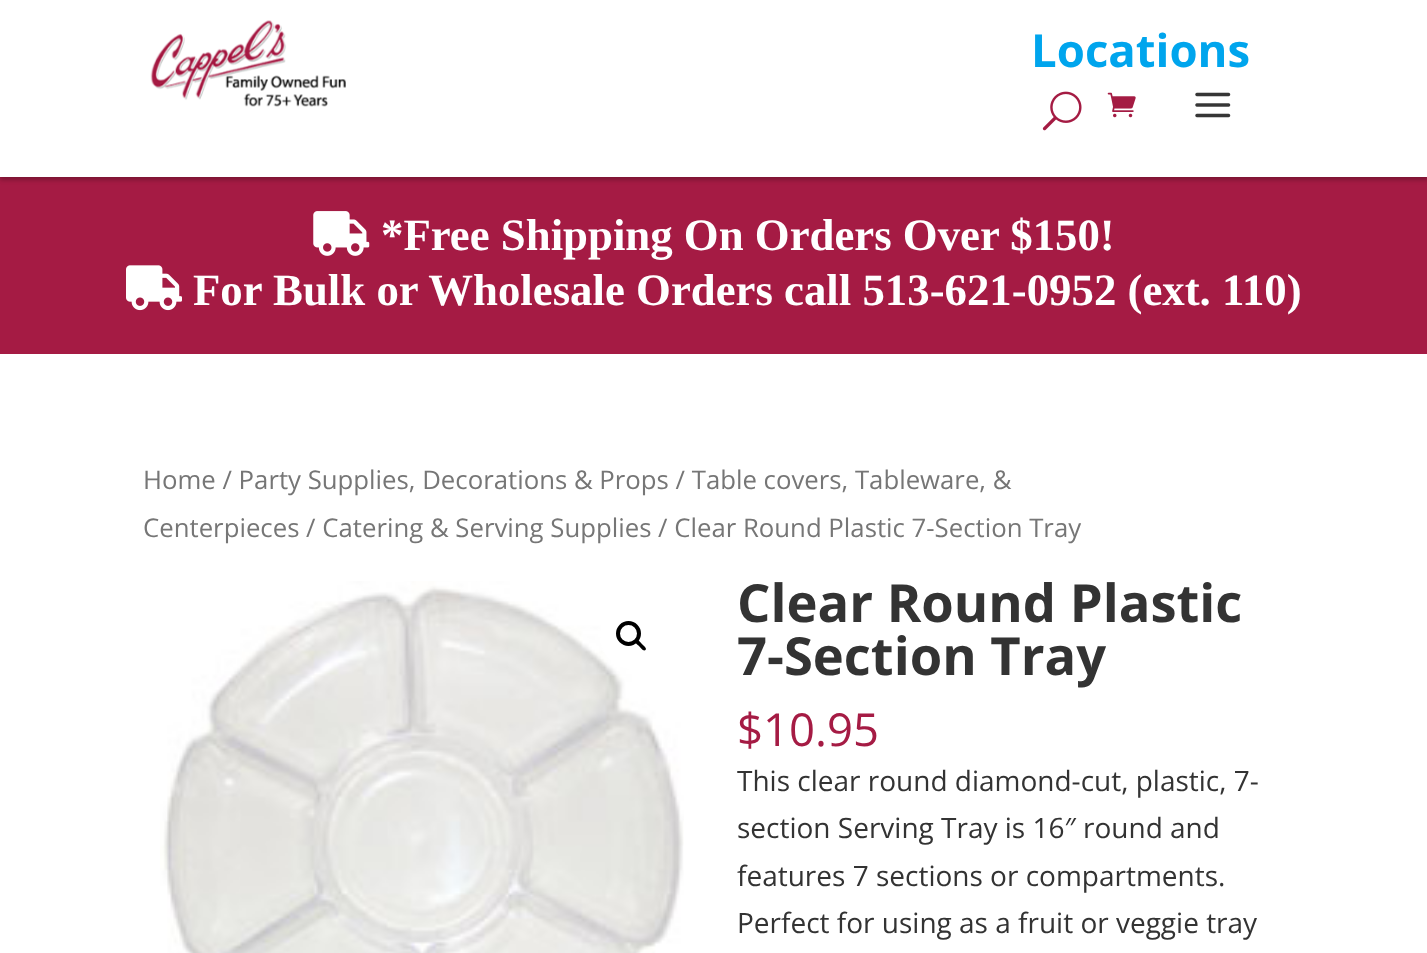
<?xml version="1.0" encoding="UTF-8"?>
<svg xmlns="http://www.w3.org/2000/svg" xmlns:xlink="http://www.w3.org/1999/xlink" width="1427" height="953">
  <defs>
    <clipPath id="clip1"><path d="M 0 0 h 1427 v 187 h -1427 z m 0 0 h 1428 v 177 h -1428 z" clip-rule="evenodd" /></clipPath>
  </defs>
  <rect width="100%" height="100%" fill="#ffffff" />
  <rect y="177" width="1427" height="177" fill="#a51b44" />
  <g clip-path="url(#clip1)">
    <rect y="4" width="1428" height="176" fill="#000000" fill-opacity="0.25" filter="blur(2px)" />
  </g>
  <image x="150" y="20" width="196" height="87" xlink:href="image1.png" />
  <image x="1042" y="91" width="40" height="40" xlink:href="image2.png" />
  <image x="1107" y="92" width="29" height="26" xlink:href="image3.png" />
  <image x="1195" y="92" width="36" height="26" xlink:href="image4.png" />
  <image x="313" y="211" width="57" height="45" xlink:href="image5.png" />
  <image x="126" y="265" width="56" height="46" xlink:href="image6.png" />
  <image x="160" y="581" width="524" height="372" xlink:href="image7.png" />
  <circle cx="631.5" cy="637.5" r="31.5" fill="#ffffff" />
  <circle cx="628.5" cy="633.5" r="10.5" fill="none" stroke="#000000" stroke-width="4" />
  <path d="M 635.5 640 c 2 -2 5 2.5 6 3.5 c 1 1.5 6 4.5 4 6.5 c -2 2 -5.5 -3 -6.5 -4 c -1 -1 -5.5 -4 -3.5 -6 z" fill="#000000" />
  <text x="1031" y="67" style="font-family: Open Sans; font-size: 45.5px; font-weight: bold; fill: #00a5ed">Locations</text>
  <text x="381" y="250" style="font-family: Liberation Serif; font-size: 44.8px; font-weight: bold; fill: #ffffff">*Free Shipping On Orders Over $150!</text>
  <text x="193" y="305" style="font-family: Liberation Serif; font-size: 44.8px; font-weight: bold; fill: #ffffff">For Bulk or Wholesale Orders call 513-621-0952 (ext. 110)</text>
  <text x="143" y="489" style="font-family: Open Sans; font-size: 25.75px; fill: #767676">Home / Party Supplies, Decorations &amp; Props / Table covers, Tableware, &amp;</text>
  <text x="143" y="537" style="font-family: Open Sans; font-size: 25.75px; fill: #767676">Centerpieces / Catering &amp; Serving Supplies / Clear Round Plastic 7-Section Tray</text>
  <text x="737" y="622" style="font-family: Open Sans; font-size: 52.5px; font-weight: bold; fill: #333333">Clear Round Plastic</text>
  <text x="737" y="675" style="font-family: Open Sans; font-size: 52.5px; font-weight: bold; fill: #333333">7-Section Tray</text>
  <text x="737" y="746" style="font-family: Open Sans; font-size: 45.5px; fill: #a51b44">$10.95</text>
  <text x="737" y="791" style="font-family: Open Sans; font-size: 28px; fill: #333333">This clear round diamond-cut, plastic, 7-</text>
  <text x="737" y="838" style="font-family: Open Sans; font-size: 28px; fill: #333333">section Serving Tray is 16″ round and</text>
  <text x="737" y="886" style="font-family: Open Sans; font-size: 28px; fill: #333333">features 7 sections or compartments.</text>
  <text x="737" y="933" style="font-family: Open Sans; font-size: 28px; fill: #333333">Perfect for using as a fruit or veggie tray</text>
</svg>
